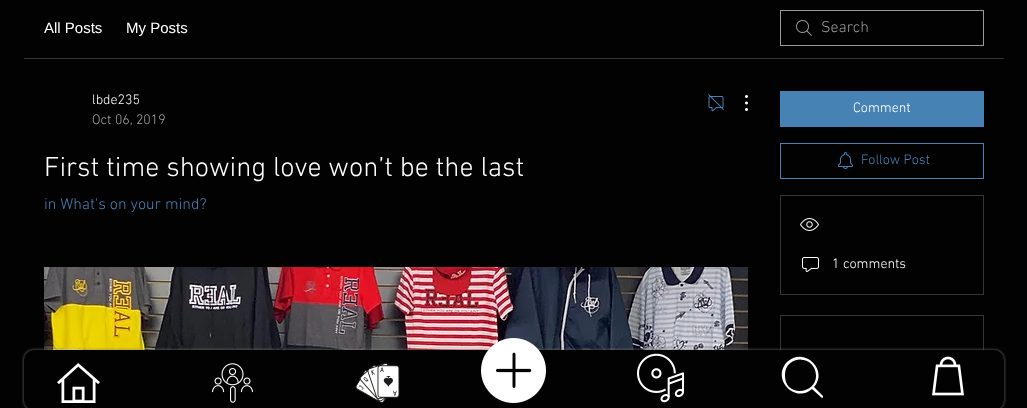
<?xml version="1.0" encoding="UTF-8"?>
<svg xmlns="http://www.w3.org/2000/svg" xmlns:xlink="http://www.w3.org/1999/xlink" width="1027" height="408">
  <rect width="100%" height="100%" fill="#020202" />
  <rect x="24" y="58" width="980" height="1" fill="#353535" />
  <image x="796" y="20" width="16" height="16" xlink:href="image1.png" />
  <rect x="780.5" y="10.5" width="203" height="35" fill="none" stroke="#9a9a9a" />
  <image x="708" y="94" width="16" height="18" xlink:href="image2.png" />
  <image x="745" y="95" width="3" height="16" xlink:href="image3.png" />
  <image x="44" y="267" width="704" height="83" xlink:href="image4.png" />
  <rect x="780" y="91" width="204" height="36" fill="#4682b4" />
  <rect x="780.5" y="143.5" width="203" height="35" fill="none" stroke="#4682b4" />
  <image x="838" y="152" width="15" height="17" xlink:href="image5.png" />
  <rect x="780.5" y="195.5" width="203" height="99" fill="none" stroke="#353535" />
  <image x="800" y="218" width="19" height="13" xlink:href="image6.png" />
  <image x="802" y="257" width="17" height="15" xlink:href="image7.png" />
  <rect x="780.5" y="315.5" width="203" height="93" fill="none" stroke="#353535" />
  <rect x="23" y="349" width="982" height="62" rx="11" fill="#808080" fill-opacity="0.47" filter="blur(1px)" />
  <rect x="25" y="351" width="978" height="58" rx="9" fill="#020202" stroke="#020202" stroke-width="2" />
  <image x="481" y="338" width="65" height="65" xlink:href="image8.png" />
  <image x="57" y="363" width="43" height="40" xlink:href="image9.png" />
  <image x="212" y="363" width="41" height="40" xlink:href="image10.png" />
  <image x="355" y="363" width="45" height="40" xlink:href="image11.png" />
  <image x="637" y="353" width="47" height="50" xlink:href="image12.png" />
  <path d="M 823 396 l -9 -9 c 15 -17 -10 -41 -27 -25 c -16 17 8 42 25 27 l 10 9 c 1 0 1 -1 1 -2 z m -38 -21 c 0 -20 30 -21 31 0 c 1 14 -17 21 -27 12 c -3 -3 -4 -7 -4 -12 z" fill="#ffffff" />
  <image x="932" y="356" width="32" height="40" xlink:href="image13.png" />
  <text x="44" y="33" style="font-family: Liberation Sans; font-size: 15px; fill: #ffffff">All Posts</text>
  <text x="126" y="33" style="font-family: Liberation Sans; font-size: 15px; fill: #ffffff">My Posts</text>
  <text x="821" y="32" style="font-family: 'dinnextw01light'; font-size: 16px; font-weight: 300; fill: #9a9a9a">Search</text>
  <text x="92" y="104" style="font-family: 'dinnextw01light'; font-size: 14px; font-weight: 300; fill: #ffffff">lbde235</text>
  <text x="92" y="124" style="font-family: 'dinnextw01light'; font-size: 14px; font-weight: 300; fill: #a4a4a4">Oct 06, 2019</text>
  <text x="44" y="176" style="font-family: 'dinnextw01light'; font-size: 28px; font-weight: 300; fill: #ffffff">First time showing love won’t be the last</text>
  <text x="44" y="209" style="font-family: 'dinnextw01light'; font-size: 16px; font-weight: 300; fill: #4682b4">in What's on your mind?</text>
  <text x="853" y="112" style="font-family: 'dinnextw01light'; font-size: 14px; font-weight: 300; fill: #ffffff">Comment</text>
  <text x="861" y="164" style="font-family: 'dinnextw01light'; font-size: 14px; font-weight: 300; fill: #4682b4">Follow Post</text>
  <text x="832" y="268" style="font-family: 'dinnextw01light'; font-size: 14px; font-weight: 300; fill: #ffffff">1 comments</text>
</svg>
